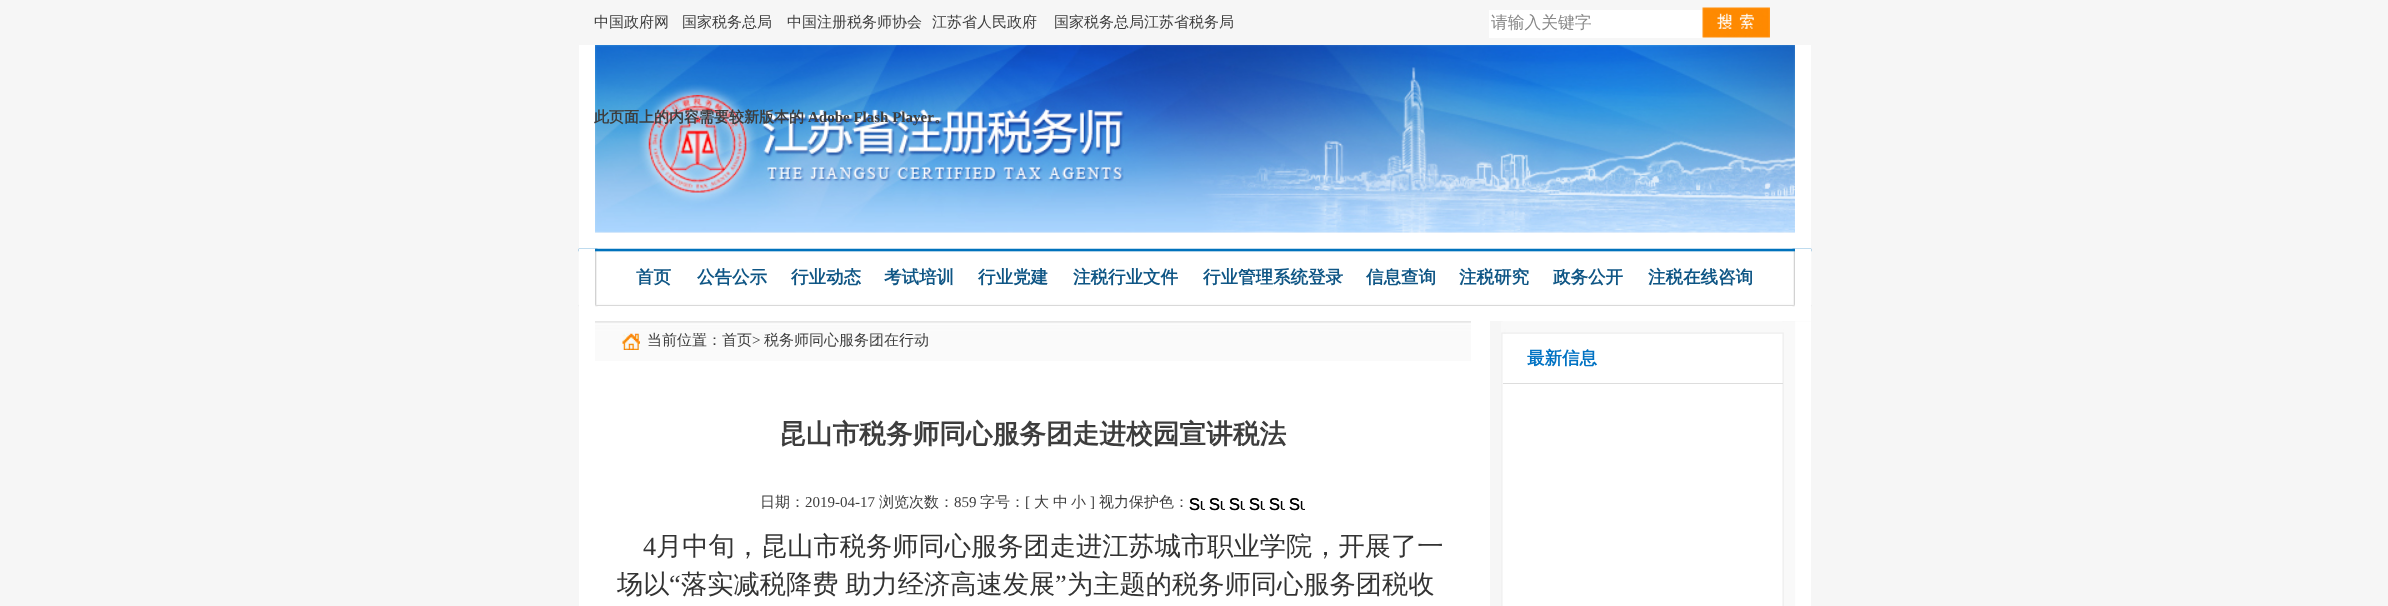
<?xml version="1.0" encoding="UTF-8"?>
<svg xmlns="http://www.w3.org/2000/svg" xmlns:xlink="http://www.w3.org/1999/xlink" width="2388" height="606">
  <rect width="100%" height="100%" fill="#f6f6f6" />
  <rect x="1489" y="10" width="214" height="28" fill="#ffffff" />
  <image x="1702" y="7" width="68" height="31" xlink:href="image1.png" />
  <rect x="579" y="45" width="16" height="188" fill="#ffffff" />
  <image x="595" y="45" width="1200" height="188" xlink:href="image2.png" />
  <rect x="1795" y="45" width="16" height="188" fill="#ffffff" />
  <rect x="579" y="233" width="1232" height="16" fill="#ffffff" />
  <image x="578" y="248" width="1234" height="59" xlink:href="image3.png" />
  <rect x="579" y="249" width="16" height="57" fill="#ffffff" />
  <rect x="579" y="306" width="1232" height="15" fill="#ffffff" />
  <image x="595" y="248" width="3" height="59" xlink:href="image4.png" />
  <image x="1792" y="248" width="3" height="59" xlink:href="image5.png" />
  <rect x="1795" y="249" width="16" height="57" fill="#ffffff" />
  <image x="1501" y="321" width="310" height="285" xlink:href="image6.png" />
  <rect x="579" y="321" width="911" height="285" fill="#ffffff" />
  <image x="595" y="321" width="876" height="40" xlink:href="image7.png" />
  <image x="622" y="333" width="18" height="17" xlink:href="image8.png" />
  <image x="1189" y="498" width="16" height="12" xlink:href="image9.png" />
  <image x="1209" y="498" width="16" height="12" xlink:href="image9.png" />
  <image x="1229" y="498" width="16" height="12" xlink:href="image9.png" />
  <image x="1249" y="498" width="16" height="12" xlink:href="image9.png" />
  <image x="1269" y="498" width="16" height="12" xlink:href="image9.png" />
  <image x="1289" y="498" width="16" height="12" xlink:href="image9.png" />
  <image x="1501" y="321" width="283" height="13" xlink:href="image10.png" />
  <rect x="1503" y="383" width="280" height="1" fill="#dddddd" />
  <text x="594" y="27" style="font-family: WenQuanYi Zen Hei; font-size: 15px; font-weight: 500; fill: #3d3d3d">中国政府网</text>
  <text x="682" y="27" style="font-family: WenQuanYi Zen Hei; font-size: 15px; font-weight: 500; fill: #3d3d3d">国家税务总局</text>
  <text x="787" y="27" style="font-family: WenQuanYi Zen Hei; font-size: 15px; font-weight: 500; fill: #3d3d3d">中国注册税务师协会</text>
  <text x="932" y="27" style="font-family: WenQuanYi Zen Hei; font-size: 15px; font-weight: 500; fill: #3d3d3d">江苏省人民政府</text>
  <text x="1054" y="27" style="font-family: WenQuanYi Zen Hei; font-size: 15px; font-weight: 500; fill: #3d3d3d">国家税务总局江苏省税务局</text>
  <text x="1491" y="28" style="font-family: WenQuanYi Zen Hei; font-size: 16.75px; font-weight: 500; fill: #888888">请输入关键字</text>
  <text x="594" y="122" style="font-family: WenQuanYi Zen Hei; font-size: 15px; font-weight: bold; fill: #3d3d3d">此页面上的内容需要较新版本的</text>
  <text x="808" y="122" style="font-family: Liberation Serif; font-size: 15px; font-weight: bold; fill: #3d3d3d">Adobe Flash Player</text>
  <text x="934" y="122" style="font-family: WenQuanYi Zen Hei; font-size: 15px; font-weight: bold; fill: #3d3d3d">。</text>
  <text x="636" y="283" style="font-family: WenQuanYi Zen Hei; font-size: 17.5px; font-weight: bold; fill: #0f5685">首页</text>
  <text x="697" y="283" style="font-family: WenQuanYi Zen Hei; font-size: 17.5px; font-weight: bold; fill: #0f5685">公告公示</text>
  <text x="791" y="283" style="font-family: WenQuanYi Zen Hei; font-size: 17.5px; font-weight: bold; fill: #0f5685">行业动态</text>
  <text x="884" y="283" style="font-family: WenQuanYi Zen Hei; font-size: 17.5px; font-weight: bold; fill: #0f5685">考试培训</text>
  <text x="978" y="283" style="font-family: WenQuanYi Zen Hei; font-size: 17.5px; font-weight: bold; fill: #0f5685">行业党建</text>
  <text x="1073" y="283" style="font-family: WenQuanYi Zen Hei; font-size: 17.5px; font-weight: bold; fill: #0f5685">注税行业文件</text>
  <text x="1203" y="283" style="font-family: WenQuanYi Zen Hei; font-size: 17.5px; font-weight: bold; fill: #0f5685">行业管理系统登录</text>
  <text x="1366" y="283" style="font-family: WenQuanYi Zen Hei; font-size: 17.5px; font-weight: bold; fill: #0f5685">信息查询</text>
  <text x="1459" y="283" style="font-family: WenQuanYi Zen Hei; font-size: 17.5px; font-weight: bold; fill: #0f5685">注税研究</text>
  <text x="1553" y="283" style="font-family: WenQuanYi Zen Hei; font-size: 17.5px; font-weight: bold; fill: #0f5685">政务公开</text>
  <text x="1648" y="283" style="font-family: WenQuanYi Zen Hei; font-size: 17.5px; font-weight: bold; fill: #0f5685">注税在线咨询</text>
  <text x="647" y="345" style="font-family: WenQuanYi Zen Hei; font-size: 15px; font-weight: 500; fill: #3d3d3d">当前位置：首页</text>
  <text x="752" y="345" style="font-family: Liberation Serif; font-size: 15px; fill: #3d3d3d">&gt;</text>
  <text x="764" y="345" style="font-family: WenQuanYi Zen Hei; font-size: 15px; font-weight: 500; fill: #3d3d3d">税务师同心服务团在行动</text>
  <text x="779" y="443" style="font-family: WenQuanYi Zen Hei; font-size: 26.7px; font-weight: bold; fill: #3d3d3d">昆山市税务师同心服务团走进校园宣讲税法</text>
  <text x="760" y="507" style="font-family: WenQuanYi Zen Hei; font-size: 15px; font-weight: 500; fill: #3d3d3d">日期：</text>
  <text x="805" y="507" style="font-family: Liberation Serif; font-size: 15px; fill: #3d3d3d">2019-04-17</text>
  <text x="879" y="507" style="font-family: WenQuanYi Zen Hei; font-size: 15px; font-weight: 500; fill: #3d3d3d">浏览次数：</text>
  <text x="954" y="507" style="font-family: Liberation Serif; font-size: 15px; fill: #3d3d3d">859</text>
  <text x="980" y="507" style="font-family: WenQuanYi Zen Hei; font-size: 15px; font-weight: 500; fill: #3d3d3d">字号：</text>
  <text x="1025" y="507" style="font-family: Liberation Serif; font-size: 15px; fill: #3d3d3d">[</text>
  <text x="1034" y="507" style="font-family: WenQuanYi Zen Hei; font-size: 15px; font-weight: 500; fill: #3d3d3d">大</text>
  <text x="1053" y="507" style="font-family: WenQuanYi Zen Hei; font-size: 15px; font-weight: 500; fill: #3d3d3d">中</text>
  <text x="1071" y="507" style="font-family: WenQuanYi Zen Hei; font-size: 15px; font-weight: 500; fill: #3d3d3d">小</text>
  <text x="1090" y="507" style="font-family: Liberation Serif; font-size: 15px; fill: #3d3d3d">]</text>
  <text x="1099" y="507" style="font-family: WenQuanYi Zen Hei; font-size: 15px; font-weight: 500; fill: #3d3d3d">视力保护色：</text>
  <text x="1189" y="510" style="font-family: Liberation Sans; font-size: 16.75px; fill: #000000">S</text>
  <text x="1209" y="510" style="font-family: Liberation Sans; font-size: 16.75px; fill: #000000">S</text>
  <text x="1229" y="510" style="font-family: Liberation Sans; font-size: 16.75px; fill: #000000">S</text>
  <text x="1249" y="510" style="font-family: Liberation Sans; font-size: 16.75px; fill: #000000">S</text>
  <text x="1269" y="510" style="font-family: Liberation Sans; font-size: 16.75px; fill: #000000">S</text>
  <text x="1289" y="510" style="font-family: Liberation Sans; font-size: 16.75px; fill: #000000">S</text>
  <text x="643" y="555" style="font-family: Liberation Serif; font-size: 26.25px; fill: #333333">4</text>
  <text x="656" y="555" style="font-family: WenQuanYi Zen Hei; font-size: 26.25px; font-weight: 500; fill: #333333">月中旬，昆山市税务师同心服务团走进江苏城市职业学院，开展了一</text>
  <text x="617" y="593" style="font-family: WenQuanYi Zen Hei; font-size: 26.25px; font-weight: 500; fill: #333333">场以</text>
  <text x="669" y="593" style="font-family: Liberation Serif; font-size: 26.25px; fill: #333333">“</text>
  <text x="681" y="593" word-spacing="-1" style="font-family: WenQuanYi Zen Hei; font-size: 26.25px; font-weight: 500; fill: #333333">落实减税降费 助力经济高速发展</text>
  <text x="1055" y="593" style="font-family: Liberation Serif; font-size: 26.25px; fill: #333333">”</text>
  <text x="1067" y="593" style="font-family: WenQuanYi Zen Hei; font-size: 26.25px; font-weight: 500; fill: #333333">为主题的税务师同心服务团税收</text>
  <text x="1527" y="364" style="font-family: WenQuanYi Zen Hei; font-size: 17.5px; font-weight: bold; fill: #0072c3">最新信息</text>
</svg>
